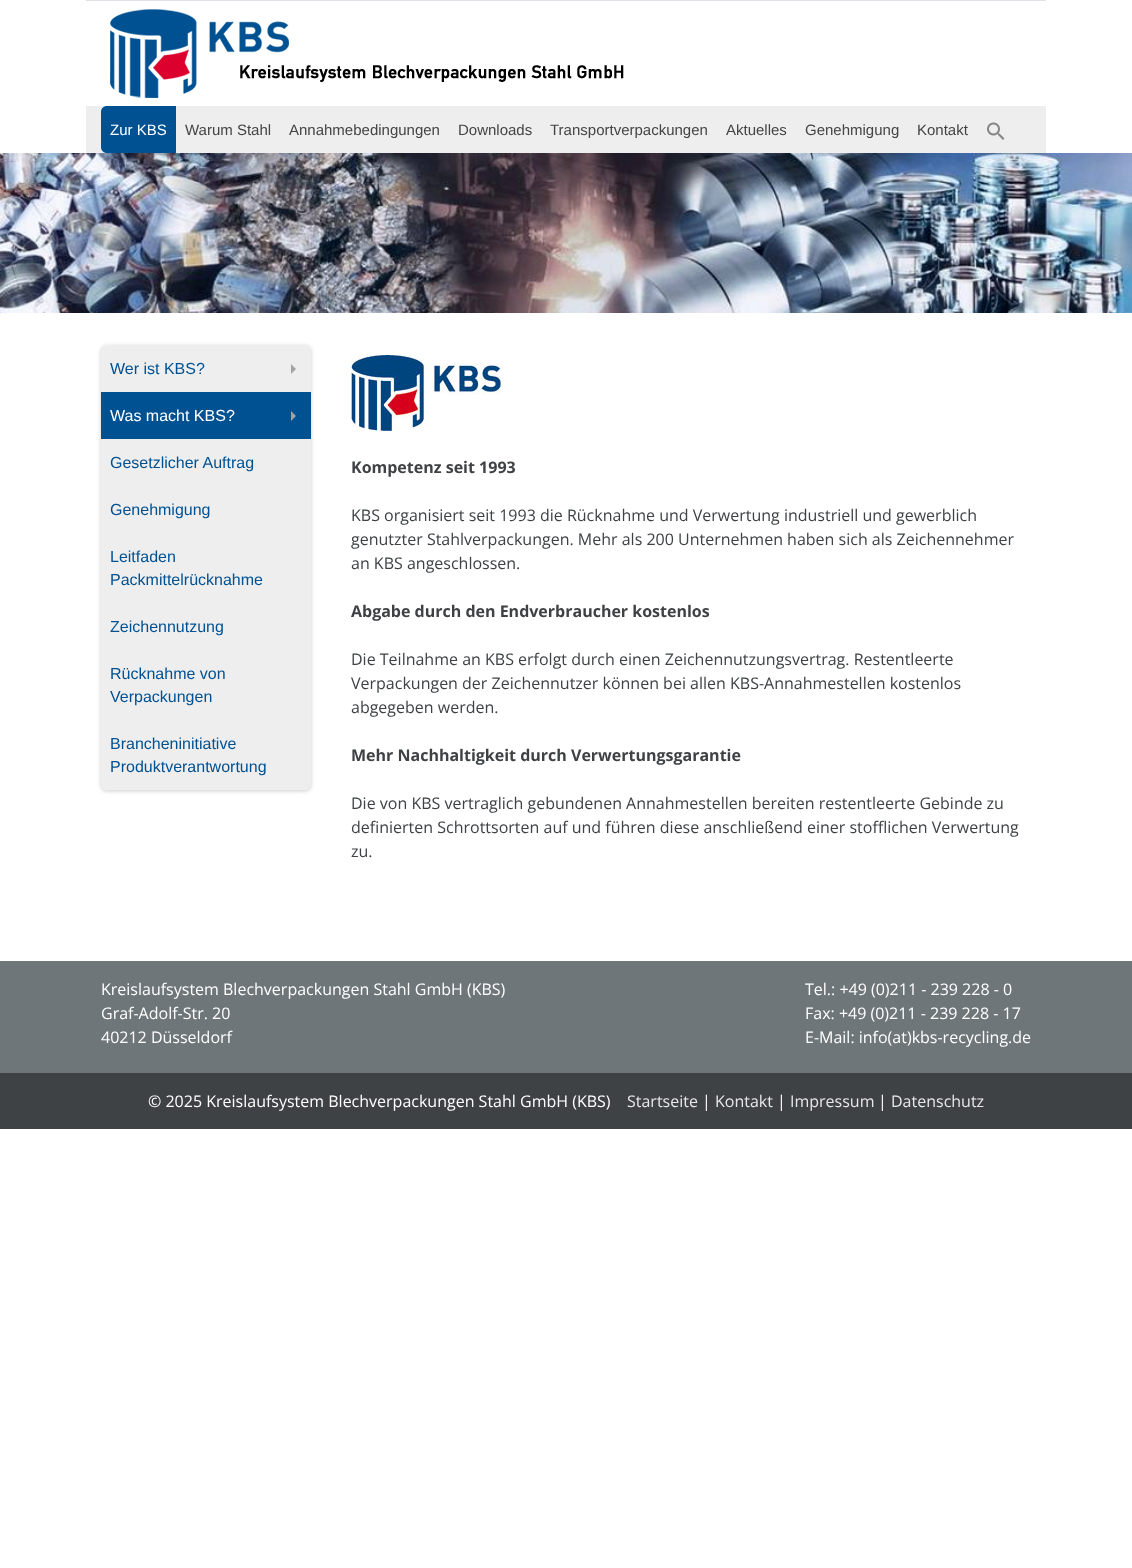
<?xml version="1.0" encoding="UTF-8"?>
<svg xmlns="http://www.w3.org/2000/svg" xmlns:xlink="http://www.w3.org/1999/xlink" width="1132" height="1568">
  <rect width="100%" height="100%" fill="#ffffff" />
  <rect x="86" width="960" height="1" fill="#dee2e6" />
  <image x="110" y="9" width="514" height="89" xlink:href="image1.png" />
  <rect x="86" y="106" width="960" height="47" fill="#eeeeee" />
  <path d="M 107 106 h 69 v 47 h -69 c -3.5 0 -6 -2.5 -6 -6 v -35 c 0 -3.5 2.5 -6 6 -6 z" fill="#005192" />
  <image x="987" y="122" width="18" height="18" xlink:href="image2.png" />
  <image x="0" y="153" width="1132" height="160" xlink:href="image3.png" />
  <rect x="101" y="346" width="210" height="445" rx="6" fill="#000000" fill-opacity="0.2" filter="blur(2px)" />
  <rect x="101" y="345" width="210" height="445" rx="6" fill="#eeeeee" />
  <path d="M 291 374 v -10 l 5 5 z" fill="#a2a2a2" />
  <rect x="101" y="392" width="210" height="47" fill="#005192" />
  <path d="M 291 421 v -10 l 5 5 z" fill="#a2a2a2" />
  <path d="M 101 720 h 210 v 64 c 0 3.5 -2.5 6 -6 6 h -198 c -3.5 0 -6 -2.5 -6 -6 z" fill="#eeeeee" />
  <image x="351" y="355" width="150" height="76" xlink:href="image4.png" />
  <rect y="961" width="1132" height="112" fill="#6f7679" />
  <rect y="1073" width="1132" height="56" fill="#3e4244" />
  <text x="110" y="135" style="font-family: Liberation Sans; font-size: 15px; fill: #ffffff">Zur KBS</text>
  <text x="185" y="135" style="font-family: Liberation Sans; font-size: 15px; fill: #444444">Warum Stahl</text>
  <text x="289" y="135" style="font-family: Liberation Sans; font-size: 15px; fill: #444444">Annahmebedingungen</text>
  <text x="458" y="135" style="font-family: Liberation Sans; font-size: 15px; fill: #444444">Downloads</text>
  <text x="550" y="135" style="font-family: Liberation Sans; font-size: 15px; fill: #444444">Transportverpackungen</text>
  <text x="726" y="135" style="font-family: Liberation Sans; font-size: 15px; fill: #444444">Aktuelles</text>
  <text x="805" y="135" style="font-family: Liberation Sans; font-size: 15px; fill: #444444">Genehmigung</text>
  <text x="917" y="135" style="font-family: Liberation Sans; font-size: 15px; fill: #444444">Kontakt</text>
  <text x="110" y="374" style="font-family: Liberation Sans; font-size: 16px; fill: #005192">Wer ist KBS?</text>
  <text x="110" y="421" style="font-family: Liberation Sans; font-size: 16px; fill: #ffffff">Was macht KBS?</text>
  <text x="110" y="468" style="font-family: Liberation Sans; font-size: 16px; fill: #005192">Gesetzlicher Auftrag</text>
  <text x="110" y="515" style="font-family: Liberation Sans; font-size: 16px; fill: #005192">Genehmigung</text>
  <text x="110" y="562" style="font-family: Liberation Sans; font-size: 16px; fill: #005192">Leitfaden</text>
  <text x="110" y="585" style="font-family: Liberation Sans; font-size: 16px; fill: #005192">Packmittelrücknahme</text>
  <text x="110" y="632" style="font-family: Liberation Sans; font-size: 16px; fill: #005192">Zeichennutzung</text>
  <text x="110" y="679" style="font-family: Liberation Sans; font-size: 16px; fill: #005192">Rücknahme von</text>
  <text x="110" y="702" style="font-family: Liberation Sans; font-size: 16px; fill: #005192">Verpackungen</text>
  <text x="110" y="749" style="font-family: Liberation Sans; font-size: 16px; fill: #005192">Brancheninitiative</text>
  <text x="110" y="772" style="font-family: Liberation Sans; font-size: 16px; fill: #005192">Produktverantwortung</text>
  <text x="351" y="473" style="font-family: Open Sans; font-size: 16px; font-weight: bold; fill: #3e4244">Kompetenz seit 1993</text>
  <text x="351" y="521" style="font-family: Open Sans; font-size: 16px; fill: #3e4244">KBS organisiert seit 1993 die Rücknahme und Verwertung industriell und gewerblich</text>
  <text x="351" y="545" style="font-family: Open Sans; font-size: 16px; fill: #3e4244">genutzter Stahlverpackungen. Mehr als 200 Unternehmen haben sich als Zeichennehmer</text>
  <text x="351" y="569" style="font-family: Open Sans; font-size: 16px; fill: #3e4244">an KBS angeschlossen.</text>
  <text x="351" y="617" style="font-family: Open Sans; font-size: 16px; font-weight: bold; fill: #3e4244">Abgabe durch den Endverbraucher kostenlos</text>
  <text x="351" y="665" style="font-family: Open Sans; font-size: 16px; fill: #3e4244">Die Teilnahme an KBS erfolgt durch einen Zeichennutzungsvertrag. Restentleerte</text>
  <text x="351" y="689" style="font-family: Open Sans; font-size: 16px; fill: #3e4244">Verpackungen der Zeichennutzer können bei allen KBS-Annahmestellen kostenlos</text>
  <text x="351" y="713" style="font-family: Open Sans; font-size: 16px; fill: #3e4244">abgegeben werden.</text>
  <text x="351" y="761" style="font-family: Open Sans; font-size: 16px; font-weight: bold; fill: #3e4244">Mehr Nachhaltigkeit durch Verwertungsgarantie</text>
  <text x="351" y="809" style="font-family: Open Sans; font-size: 16px; fill: #3e4244">Die von KBS vertraglich gebundenen Annahmestellen bereiten restentleerte Gebinde zu</text>
  <text x="351" y="833" style="font-family: Open Sans; font-size: 16px; fill: #3e4244">definierten Schrottsorten auf und führen diese anschließend einer stofflichen Verwertung</text>
  <text x="351" y="857" style="font-family: Open Sans; font-size: 16px; fill: #3e4244">zu.</text>
  <text x="101" y="995" style="font-family: Open Sans; font-size: 16px; fill: #ffffff">Kreislaufsystem Blechverpackungen Stahl GmbH (KBS)</text>
  <text x="101" y="1019" style="font-family: Open Sans; font-size: 16px; fill: #ffffff">Graf-Adolf-Str. 20</text>
  <text x="101" y="1043" style="font-family: Open Sans; font-size: 16px; fill: #ffffff">40212 Düsseldorf</text>
  <text x="805" y="995" style="font-family: Open Sans; font-size: 16px; fill: #ffffff">Tel.: +49 (0)211 - 239 228 - 0</text>
  <text x="805" y="1019" style="font-family: Open Sans; font-size: 16px; fill: #ffffff">Fax: +49 (0)211 - 239 228 - 17</text>
  <text x="805" y="1043" style="font-family: Open Sans; font-size: 16px; fill: #ffffff">E-Mail: info(at)kbs-recycling.de</text>
  <text x="148" y="1107" style="font-family: Open Sans; font-size: 16px; fill: #ffffff">© 2025 Kreislaufsystem Blechverpackungen Stahl GmbH (KBS)</text>
  <text x="627" y="1107" style="font-family: Open Sans; font-size: 16px; fill: #e6e7e8">Startseite</text>
  <text x="702" y="1107" style="font-family: Open Sans; font-size: 16px; fill: #ffffff">|</text>
  <text x="715" y="1107" style="font-family: Open Sans; font-size: 16px; fill: #e6e7e8">Kontakt</text>
  <text x="777" y="1107" style="font-family: Open Sans; font-size: 16px; fill: #ffffff">|</text>
  <text x="790" y="1107" style="font-family: Open Sans; font-size: 16px; fill: #e6e7e8">Impressum</text>
  <text x="878" y="1107" style="font-family: Open Sans; font-size: 16px; fill: #ffffff">|</text>
  <text x="891" y="1107" style="font-family: Open Sans; font-size: 16px; fill: #e6e7e8">Datenschutz</text>
</svg>
